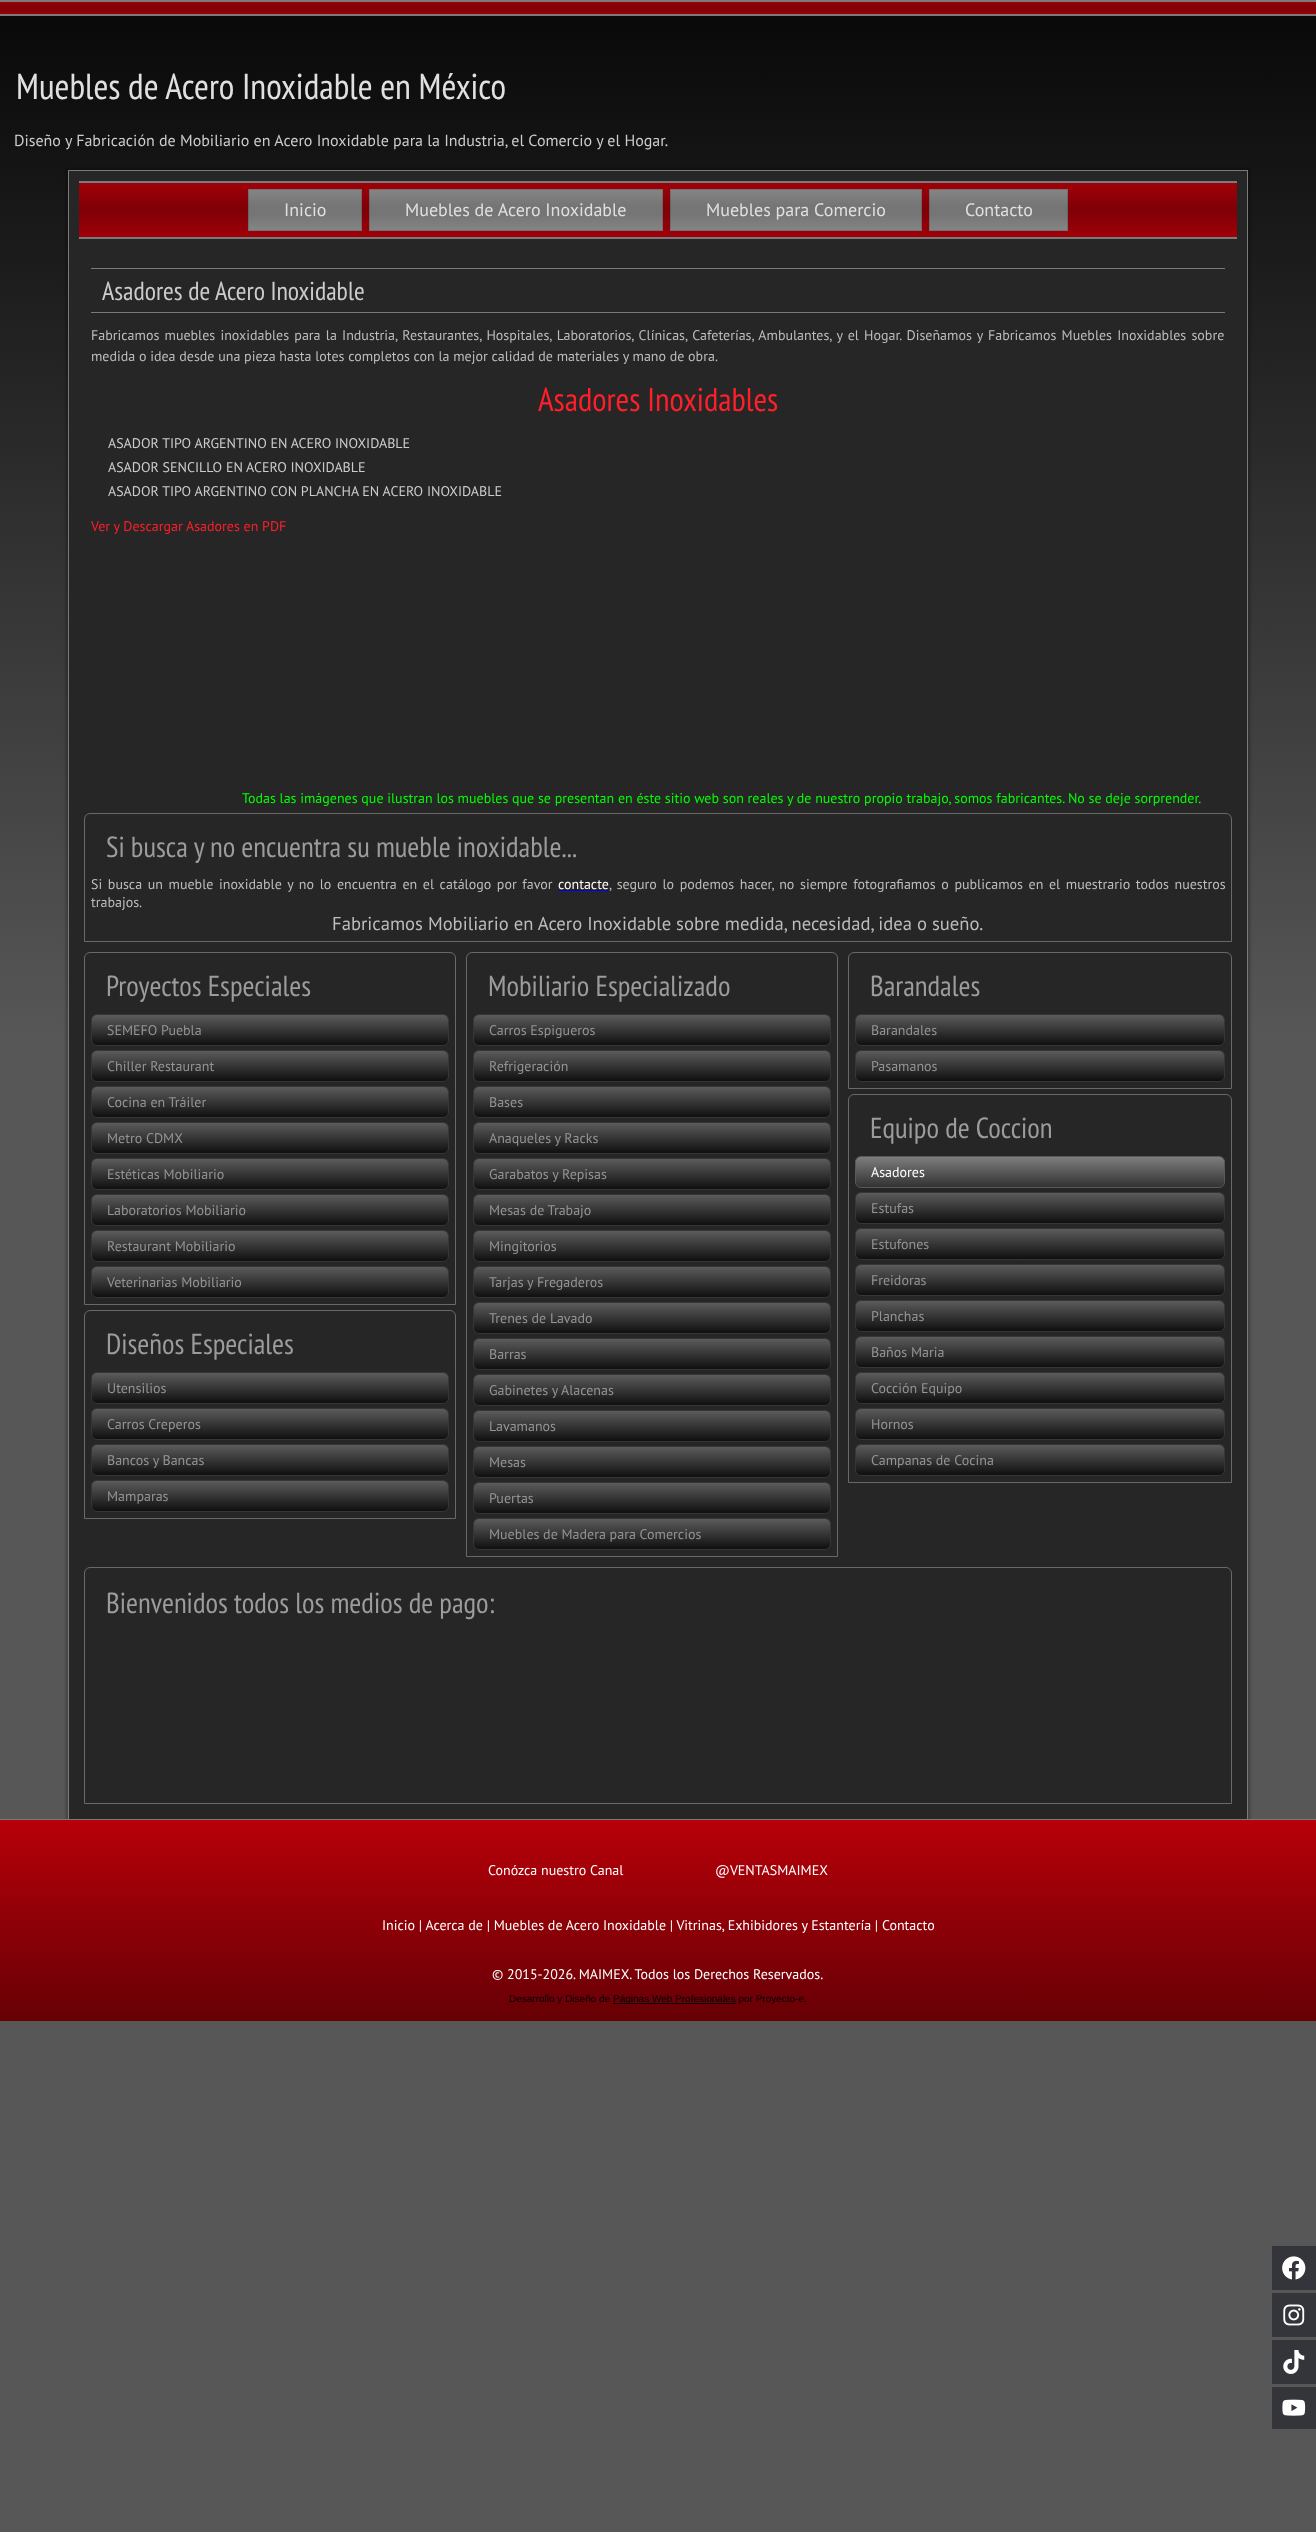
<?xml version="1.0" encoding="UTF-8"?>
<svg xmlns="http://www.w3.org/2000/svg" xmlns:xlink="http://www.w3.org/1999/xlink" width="1316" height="2532">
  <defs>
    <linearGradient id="g1" gradientUnits="userSpaceOnUse" x1="658" y1="0" x2="658" y2="2532"><stop offset="0" stop-color="#080808" /><stop offset="0.41" stop-color="#575757" /></linearGradient>
    <linearGradient id="g2" gradientUnits="userSpaceOnUse" x1="658" y1="0" x2="658" y2="16"><stop offset="0" stop-color="#a30008" /><stop offset="0.4" stop-color="#850007" /><stop offset="0.5" stop-color="#800006" /><stop offset="0.6" stop-color="#850007" /><stop offset="1" stop-color="#a30008" /></linearGradient>
    <linearGradient id="g3" gradientUnits="userSpaceOnUse" x1="658" y1="181" x2="658" y2="239"><stop offset="0" stop-color="#a30008" /><stop offset="0.4" stop-color="#850007" /><stop offset="0.5" stop-color="#800006" /><stop offset="0.6" stop-color="#850007" /><stop offset="1" stop-color="#a30008" /></linearGradient>
    <linearGradient id="g4" gradientUnits="userSpaceOnUse" x1="305" y1="189" x2="305" y2="231"><stop offset="0" stop-color="#858585" /><stop offset="0.13" stop-color="#808080" /><stop offset="0.4" stop-color="#757575" /><stop offset="0.6" stop-color="#757575" /><stop offset="0.87" stop-color="#808080" /><stop offset="1" stop-color="#858585" /></linearGradient>
    <linearGradient id="g5" gradientUnits="userSpaceOnUse" x1="516" y1="189" x2="516" y2="231"><stop offset="0" stop-color="#858585" /><stop offset="0.13" stop-color="#808080" /><stop offset="0.4" stop-color="#757575" /><stop offset="0.6" stop-color="#757575" /><stop offset="0.87" stop-color="#808080" /><stop offset="1" stop-color="#858585" /></linearGradient>
    <linearGradient id="g6" gradientUnits="userSpaceOnUse" x1="796" y1="189" x2="796" y2="231"><stop offset="0" stop-color="#858585" /><stop offset="0.13" stop-color="#808080" /><stop offset="0.4" stop-color="#757575" /><stop offset="0.6" stop-color="#757575" /><stop offset="0.87" stop-color="#808080" /><stop offset="1" stop-color="#858585" /></linearGradient>
    <linearGradient id="g7" gradientUnits="userSpaceOnUse" x1="999" y1="189" x2="999" y2="231"><stop offset="0" stop-color="#858585" /><stop offset="0.13" stop-color="#808080" /><stop offset="0.4" stop-color="#757575" /><stop offset="0.6" stop-color="#757575" /><stop offset="0.87" stop-color="#808080" /><stop offset="1" stop-color="#858585" /></linearGradient>
    <linearGradient id="g8" gradientUnits="userSpaceOnUse" x1="270" y1="1014" x2="270" y2="1046"><stop offset="0" stop-color="#5e5e5e" /><stop offset="1" stop-color="#0d0d0d" /></linearGradient>
    <linearGradient id="g9" gradientUnits="userSpaceOnUse" x1="270" y1="1050" x2="270" y2="1082"><stop offset="0" stop-color="#5e5e5e" /><stop offset="1" stop-color="#0d0d0d" /></linearGradient>
    <linearGradient id="g10" gradientUnits="userSpaceOnUse" x1="270" y1="1086" x2="270" y2="1118"><stop offset="0" stop-color="#5e5e5e" /><stop offset="1" stop-color="#0d0d0d" /></linearGradient>
    <linearGradient id="g11" gradientUnits="userSpaceOnUse" x1="270" y1="1122" x2="270" y2="1154"><stop offset="0" stop-color="#5e5e5e" /><stop offset="1" stop-color="#0d0d0d" /></linearGradient>
    <linearGradient id="g12" gradientUnits="userSpaceOnUse" x1="270" y1="1158" x2="270" y2="1190"><stop offset="0" stop-color="#5e5e5e" /><stop offset="1" stop-color="#0d0d0d" /></linearGradient>
    <linearGradient id="g13" gradientUnits="userSpaceOnUse" x1="270" y1="1194" x2="270" y2="1226"><stop offset="0" stop-color="#5e5e5e" /><stop offset="1" stop-color="#0d0d0d" /></linearGradient>
    <linearGradient id="g14" gradientUnits="userSpaceOnUse" x1="270" y1="1230" x2="270" y2="1262"><stop offset="0" stop-color="#5e5e5e" /><stop offset="1" stop-color="#0d0d0d" /></linearGradient>
    <linearGradient id="g15" gradientUnits="userSpaceOnUse" x1="270" y1="1266" x2="270" y2="1298"><stop offset="0" stop-color="#5e5e5e" /><stop offset="1" stop-color="#0d0d0d" /></linearGradient>
    <linearGradient id="g16" gradientUnits="userSpaceOnUse" x1="270" y1="1372" x2="270" y2="1404"><stop offset="0" stop-color="#5e5e5e" /><stop offset="1" stop-color="#0d0d0d" /></linearGradient>
    <linearGradient id="g17" gradientUnits="userSpaceOnUse" x1="270" y1="1408" x2="270" y2="1440"><stop offset="0" stop-color="#5e5e5e" /><stop offset="1" stop-color="#0d0d0d" /></linearGradient>
    <linearGradient id="g18" gradientUnits="userSpaceOnUse" x1="270" y1="1444" x2="270" y2="1476"><stop offset="0" stop-color="#5e5e5e" /><stop offset="1" stop-color="#0d0d0d" /></linearGradient>
    <linearGradient id="g19" gradientUnits="userSpaceOnUse" x1="270" y1="1480" x2="270" y2="1512"><stop offset="0" stop-color="#5e5e5e" /><stop offset="1" stop-color="#0d0d0d" /></linearGradient>
    <linearGradient id="g20" gradientUnits="userSpaceOnUse" x1="652" y1="1014" x2="652" y2="1046"><stop offset="0" stop-color="#5e5e5e" /><stop offset="1" stop-color="#0d0d0d" /></linearGradient>
    <linearGradient id="g21" gradientUnits="userSpaceOnUse" x1="652" y1="1050" x2="652" y2="1082"><stop offset="0" stop-color="#5e5e5e" /><stop offset="1" stop-color="#0d0d0d" /></linearGradient>
    <linearGradient id="g22" gradientUnits="userSpaceOnUse" x1="652" y1="1086" x2="652" y2="1118"><stop offset="0" stop-color="#5e5e5e" /><stop offset="1" stop-color="#0d0d0d" /></linearGradient>
    <linearGradient id="g23" gradientUnits="userSpaceOnUse" x1="652" y1="1122" x2="652" y2="1154"><stop offset="0" stop-color="#5e5e5e" /><stop offset="1" stop-color="#0d0d0d" /></linearGradient>
    <linearGradient id="g24" gradientUnits="userSpaceOnUse" x1="652" y1="1158" x2="652" y2="1190"><stop offset="0" stop-color="#5e5e5e" /><stop offset="1" stop-color="#0d0d0d" /></linearGradient>
    <linearGradient id="g25" gradientUnits="userSpaceOnUse" x1="652" y1="1194" x2="652" y2="1226"><stop offset="0" stop-color="#5e5e5e" /><stop offset="1" stop-color="#0d0d0d" /></linearGradient>
    <linearGradient id="g26" gradientUnits="userSpaceOnUse" x1="652" y1="1230" x2="652" y2="1262"><stop offset="0" stop-color="#5e5e5e" /><stop offset="1" stop-color="#0d0d0d" /></linearGradient>
    <linearGradient id="g27" gradientUnits="userSpaceOnUse" x1="652" y1="1266" x2="652" y2="1298"><stop offset="0" stop-color="#5e5e5e" /><stop offset="1" stop-color="#0d0d0d" /></linearGradient>
    <linearGradient id="g28" gradientUnits="userSpaceOnUse" x1="652" y1="1302" x2="652" y2="1334"><stop offset="0" stop-color="#5e5e5e" /><stop offset="1" stop-color="#0d0d0d" /></linearGradient>
    <linearGradient id="g29" gradientUnits="userSpaceOnUse" x1="652" y1="1338" x2="652" y2="1370"><stop offset="0" stop-color="#5e5e5e" /><stop offset="1" stop-color="#0d0d0d" /></linearGradient>
    <linearGradient id="g30" gradientUnits="userSpaceOnUse" x1="652" y1="1374" x2="652" y2="1406"><stop offset="0" stop-color="#5e5e5e" /><stop offset="1" stop-color="#0d0d0d" /></linearGradient>
    <linearGradient id="g31" gradientUnits="userSpaceOnUse" x1="652" y1="1410" x2="652" y2="1442"><stop offset="0" stop-color="#5e5e5e" /><stop offset="1" stop-color="#0d0d0d" /></linearGradient>
    <linearGradient id="g32" gradientUnits="userSpaceOnUse" x1="652" y1="1446" x2="652" y2="1478"><stop offset="0" stop-color="#5e5e5e" /><stop offset="1" stop-color="#0d0d0d" /></linearGradient>
    <linearGradient id="g33" gradientUnits="userSpaceOnUse" x1="652" y1="1482" x2="652" y2="1514"><stop offset="0" stop-color="#5e5e5e" /><stop offset="1" stop-color="#0d0d0d" /></linearGradient>
    <linearGradient id="g34" gradientUnits="userSpaceOnUse" x1="652" y1="1518" x2="652" y2="1550"><stop offset="0" stop-color="#5e5e5e" /><stop offset="1" stop-color="#0d0d0d" /></linearGradient>
    <linearGradient id="g35" gradientUnits="userSpaceOnUse" x1="1040" y1="1014" x2="1040" y2="1046"><stop offset="0" stop-color="#5e5e5e" /><stop offset="1" stop-color="#0d0d0d" /></linearGradient>
    <linearGradient id="g36" gradientUnits="userSpaceOnUse" x1="1040" y1="1050" x2="1040" y2="1082"><stop offset="0" stop-color="#5e5e5e" /><stop offset="1" stop-color="#0d0d0d" /></linearGradient>
    <linearGradient id="g37" gradientUnits="userSpaceOnUse" x1="1040" y1="1156" x2="1040" y2="1188"><stop offset="0" stop-color="#808080" /><stop offset="1" stop-color="#303030" /></linearGradient>
    <linearGradient id="g38" gradientUnits="userSpaceOnUse" x1="1040" y1="1192" x2="1040" y2="1224"><stop offset="0" stop-color="#5e5e5e" /><stop offset="1" stop-color="#0d0d0d" /></linearGradient>
    <linearGradient id="g39" gradientUnits="userSpaceOnUse" x1="1040" y1="1228" x2="1040" y2="1260"><stop offset="0" stop-color="#5e5e5e" /><stop offset="1" stop-color="#0d0d0d" /></linearGradient>
    <linearGradient id="g40" gradientUnits="userSpaceOnUse" x1="1040" y1="1264" x2="1040" y2="1296"><stop offset="0" stop-color="#5e5e5e" /><stop offset="1" stop-color="#0d0d0d" /></linearGradient>
    <linearGradient id="g41" gradientUnits="userSpaceOnUse" x1="1040" y1="1300" x2="1040" y2="1332"><stop offset="0" stop-color="#5e5e5e" /><stop offset="1" stop-color="#0d0d0d" /></linearGradient>
    <linearGradient id="g42" gradientUnits="userSpaceOnUse" x1="1040" y1="1336" x2="1040" y2="1368"><stop offset="0" stop-color="#5e5e5e" /><stop offset="1" stop-color="#0d0d0d" /></linearGradient>
    <linearGradient id="g43" gradientUnits="userSpaceOnUse" x1="1040" y1="1372" x2="1040" y2="1404"><stop offset="0" stop-color="#5e5e5e" /><stop offset="1" stop-color="#0d0d0d" /></linearGradient>
    <linearGradient id="g44" gradientUnits="userSpaceOnUse" x1="1040" y1="1408" x2="1040" y2="1440"><stop offset="0" stop-color="#5e5e5e" /><stop offset="1" stop-color="#0d0d0d" /></linearGradient>
    <linearGradient id="g45" gradientUnits="userSpaceOnUse" x1="1040" y1="1444" x2="1040" y2="1476"><stop offset="0" stop-color="#5e5e5e" /><stop offset="1" stop-color="#0d0d0d" /></linearGradient>
    <linearGradient id="g46" gradientUnits="userSpaceOnUse" x1="658" y1="1819" x2="658" y2="2021"><stop offset="0" stop-color="#b80009" /><stop offset="1" stop-color="#660005" /></linearGradient>
  </defs>
  <rect width="100%" height="100%" fill="#ffffff" />
  <rect y="16" width="1316" height="2516" fill="url(#g1)" />
  <rect y="2" width="1316" height="12" fill="url(#g2)" />
  <rect width="1316" height="2" fill="#7a7a7a" />
  <rect y="14" width="1316" height="2" fill="#7a7a7a" />
  <rect x="66" y="168" width="1184" height="1653" fill="#000000" fill-opacity="0.25" filter="blur(1.5px)" />
  <rect x="69" y="171" width="1178" height="1648" fill="#262626" />
  <rect x="68" y="170" width="1180" height="1" fill="#7a7a7a" />
  <rect x="1247" y="170" width="1" height="1649" fill="#7a7a7a" />
  <rect x="68" y="170" width="1" height="1649" fill="#7a7a7a" />
  <rect x="79" y="183" width="1158" height="54" fill="url(#g3)" />
  <rect x="79" y="181" width="1158" height="2" fill="#7a7a7a" />
  <rect x="79" y="237" width="1158" height="2" fill="#7a7a7a" />
  <rect x="248" y="189" width="114" height="42" fill="url(#g4)" />
  <rect x="248.5" y="189.5" width="113" height="41" fill="none" stroke="#262626" stroke-opacity="0.2" />
  <rect x="369" y="189" width="294" height="42" fill="url(#g5)" />
  <rect x="369.5" y="189.5" width="293" height="41" fill="none" stroke="#262626" stroke-opacity="0.2" />
  <rect x="670" y="189" width="252" height="42" fill="url(#g6)" />
  <rect x="670.5" y="189.5" width="251" height="41" fill="none" stroke="#262626" stroke-opacity="0.2" />
  <rect x="929" y="189" width="139" height="42" fill="url(#g7)" />
  <rect x="929.5" y="189.5" width="138" height="41" fill="none" stroke="#262626" stroke-opacity="0.2" />
  <rect x="91" y="268" width="1134" height="1" fill="#7a7a7a" />
  <rect x="91" y="312" width="1134" height="1" fill="#7a7a7a" />
  <path d="M 90 813.5 h 1136 c 3 0 5.5 2.5 5.5 5.5 v 122.5 h -1147 v -122.5 c 0 -3 2.5 -5.5 5.5 -5.5 z" fill="none" stroke="#696969" />
  <rect x="558" y="890" width="51" height="1" fill="#0000ee" />
  <path d="M 90 952.5 h 360 c 3 0 5.5 2.5 5.5 5.5 v 346.5 h -371 v -346.5 c 0 -3 2.5 -5.5 5.5 -5.5 z" fill="none" stroke="#696969" />
  <rect x="91.5" y="1014.5" width="357" height="31" rx="5.5" fill="url(#g8)" stroke="#363636" />
  <rect x="91.5" y="1050.5" width="357" height="31" rx="5.5" fill="url(#g9)" stroke="#363636" />
  <rect x="91.5" y="1086.5" width="357" height="31" rx="5.5" fill="url(#g10)" stroke="#363636" />
  <rect x="91.5" y="1122.5" width="357" height="31" rx="5.5" fill="url(#g11)" stroke="#363636" />
  <rect x="91.5" y="1158.5" width="357" height="31" rx="5.5" fill="url(#g12)" stroke="#363636" />
  <rect x="91.5" y="1194.5" width="357" height="31" rx="5.5" fill="url(#g13)" stroke="#363636" />
  <rect x="91.5" y="1230.5" width="357" height="31" rx="5.5" fill="url(#g14)" stroke="#363636" />
  <rect x="91.5" y="1266.5" width="357" height="31" rx="5.5" fill="url(#g15)" stroke="#363636" />
  <path d="M 90 1310.5 h 360 c 3 0 5.5 2.5 5.5 5.5 v 202.5 h -371 v -202.5 c 0 -3 2.5 -5.5 5.5 -5.5 z" fill="none" stroke="#696969" />
  <rect x="91.5" y="1372.5" width="357" height="31" rx="5.5" fill="url(#g16)" stroke="#363636" />
  <rect x="91.5" y="1408.5" width="357" height="31" rx="5.5" fill="url(#g17)" stroke="#363636" />
  <rect x="91.5" y="1444.5" width="357" height="31" rx="5.5" fill="url(#g18)" stroke="#363636" />
  <rect x="91.5" y="1480.5" width="357" height="31" rx="5.5" fill="url(#g19)" stroke="#363636" />
  <path d="M 472 952.5 h 360 c 3 0 5.5 2.5 5.5 5.5 v 598.5 h -371 v -598.5 c 0 -3 2.5 -5.5 5.5 -5.5 z" fill="none" stroke="#696969" />
  <rect x="473.5" y="1014.5" width="357" height="31" rx="5.5" fill="url(#g20)" stroke="#363636" />
  <rect x="473.5" y="1050.5" width="357" height="31" rx="5.5" fill="url(#g21)" stroke="#363636" />
  <rect x="473.5" y="1086.5" width="357" height="31" rx="5.5" fill="url(#g22)" stroke="#363636" />
  <rect x="473.5" y="1122.5" width="357" height="31" rx="5.5" fill="url(#g23)" stroke="#363636" />
  <rect x="473.5" y="1158.5" width="357" height="31" rx="5.5" fill="url(#g24)" stroke="#363636" />
  <rect x="473.5" y="1194.5" width="357" height="31" rx="5.5" fill="url(#g25)" stroke="#363636" />
  <rect x="473.5" y="1230.5" width="357" height="31" rx="5.5" fill="url(#g26)" stroke="#363636" />
  <rect x="473.5" y="1266.5" width="357" height="31" rx="5.5" fill="url(#g27)" stroke="#363636" />
  <rect x="473.5" y="1302.5" width="357" height="31" rx="5.5" fill="url(#g28)" stroke="#363636" />
  <rect x="473.5" y="1338.5" width="357" height="31" rx="5.5" fill="url(#g29)" stroke="#363636" />
  <rect x="473.5" y="1374.5" width="357" height="31" rx="5.5" fill="url(#g30)" stroke="#363636" />
  <rect x="473.5" y="1410.5" width="357" height="31" rx="5.5" fill="url(#g31)" stroke="#363636" />
  <rect x="473.5" y="1446.5" width="357" height="31" rx="5.5" fill="url(#g32)" stroke="#363636" />
  <rect x="473.5" y="1482.5" width="357" height="31" rx="5.5" fill="url(#g33)" stroke="#363636" />
  <rect x="473.5" y="1518.5" width="357" height="31" rx="5.5" fill="url(#g34)" stroke="#363636" />
  <path d="M 854 952.5 h 372 c 3 0 5.5 2.5 5.5 5.5 v 130.5 h -383 v -130.5 c 0 -3 2.5 -5.5 5.5 -5.5 z" fill="none" stroke="#696969" />
  <rect x="855.5" y="1014.5" width="369" height="31" rx="5.5" fill="url(#g35)" stroke="#363636" />
  <rect x="855.5" y="1050.5" width="369" height="31" rx="5.5" fill="url(#g36)" stroke="#363636" />
  <path d="M 854 1094.5 h 372 c 3 0 5.5 2.5 5.5 5.5 v 382.5 h -383 v -382.5 c 0 -3 2.5 -5.5 5.5 -5.5 z" fill="none" stroke="#696969" />
  <rect x="855.5" y="1156.5" width="369" height="31" rx="5.5" fill="url(#g37)" stroke="#595959" />
  <rect x="855.5" y="1192.5" width="369" height="31" rx="5.5" fill="url(#g38)" stroke="#363636" />
  <rect x="855.5" y="1228.5" width="369" height="31" rx="5.5" fill="url(#g39)" stroke="#363636" />
  <rect x="855.5" y="1264.5" width="369" height="31" rx="5.5" fill="url(#g40)" stroke="#363636" />
  <rect x="855.5" y="1300.5" width="369" height="31" rx="5.5" fill="url(#g41)" stroke="#363636" />
  <rect x="855.5" y="1336.5" width="369" height="31" rx="5.5" fill="url(#g42)" stroke="#363636" />
  <rect x="855.5" y="1372.5" width="369" height="31" rx="5.5" fill="url(#g43)" stroke="#363636" />
  <rect x="855.5" y="1408.5" width="369" height="31" rx="5.5" fill="url(#g44)" stroke="#363636" />
  <rect x="855.5" y="1444.5" width="369" height="31" rx="5.5" fill="url(#g45)" stroke="#363636" />
  <path d="M 90 1567.5 h 1136 c 3 0 5.5 2.5 5.5 5.5 v 230.5 h -1147 v -230.5 c 0 -3 2.5 -5.5 5.5 -5.5 z" fill="none" stroke="#696969" />
  <rect y="1820" width="1316" height="201" fill="url(#g46)" />
  <rect y="1819" width="1316" height="1" fill="#7a7a7a" />
  <rect x="613" y="2003" width="123" height="1" fill="#000000" />
  <rect x="1272" y="2246" width="44" height="44" fill="#33353b" />
  <image x="1282" y="2256" width="24" height="24" xlink:href="image1.png" />
  <rect x="1272" y="2293" width="44" height="44" fill="#33353b" />
  <image x="1283" y="2304" width="22" height="22" xlink:href="image2.png" />
  <rect x="1272" y="2340" width="44" height="44" fill="#33353b" />
  <image x="1283" y="2350" width="22" height="24" xlink:href="image3.png" />
  <rect x="1272" y="2387" width="44" height="42" fill="#33353b" />
  <image x="1282" y="2399" width="24" height="17" xlink:href="image4.png" />
  <text x="16" y="99" style="font-family: PT Sans Narrow; font-size: 36px; fill: #e0e0e0">Muebles de Acero Inoxidable en México</text>
  <text x="14" y="146" style="font-family: PT Sans; font-size: 16px; fill: #cccccc">Diseño y Fabricación de Mobiliario en Acero Inoxidable para la Industria, el Comercio y el Hogar.</text>
  <text x="284" y="216" style="font-family: PT Sans; font-size: 18px; fill: #e0e0e0">Inicio</text>
  <text x="405" y="216" style="font-family: PT Sans; font-size: 18px; fill: #e0e0e0">Muebles de Acero Inoxidable</text>
  <text x="706" y="216" style="font-family: PT Sans; font-size: 18px; fill: #e0e0e0">Muebles para Comercio</text>
  <text x="965" y="216" style="font-family: PT Sans; font-size: 18px; fill: #e0e0e0">Contacto</text>
  <text x="102" y="300" style="font-family: PT Sans Narrow; font-size: 26px; fill: #cccccc">Asadores de Acero Inoxidable</text>
  <text x="91" y="340" word-spacing="1.5" style="font-family: PT Sans; font-size: 14px; fill: #bdbdbd">Fabricamos muebles inoxidables para la Industria, Restaurantes, Hospitales, Laboratorios, Clínicas, Cafeterías, Ambulantes, y el Hogar. Diseñamos y Fabricamos Muebles Inoxidables sobre</text>
  <text x="91" y="361" style="font-family: PT Sans; font-size: 14px; fill: #bdbdbd">medida o idea desde una pieza hasta lotes completos con la mejor calidad de materiales y mano de obra.</text>
  <text x="538" y="411" style="font-family: PT Sans Narrow; font-size: 33px; fill: #ff1f2a">Asadores Inoxidables</text>
  <text x="108" y="448" style="font-family: PT Sans; font-size: 14px; fill: #cccccc">ASADOR TIPO ARGENTINO EN ACERO INOXIDABLE</text>
  <text x="108" y="472" style="font-family: PT Sans; font-size: 14px; fill: #cccccc">ASADOR SENCILLO EN ACERO INOXIDABLE</text>
  <text x="108" y="496" style="font-family: PT Sans; font-size: 14px; fill: #cccccc">ASADOR TIPO ARGENTINO CON PLANCHA EN ACERO INOXIDABLE</text>
  <text x="91" y="531" style="font-family: PT Sans; font-size: 14px; fill: #ff1f2a">Ver y Descargar Asadores en PDF</text>
  <text x="242" y="803" style="font-family: PT Sans; font-size: 14px; fill: #00ff00">Todas las imágenes que ilustran los muebles que se presentan en éste sitio web son reales y de nuestro propio trabajo, somos fabricantes. No se deje sorprender.</text>
  <text x="106" y="857" style="font-family: PT Sans Narrow; font-size: 29px; fill: #9c9c9c">Si busca y no encuentra su mueble inoxidable...</text>
  <text x="91" y="889" word-spacing="1.9" style="font-family: PT Sans; font-size: 14px; fill: #bdbdbd">Si busca un mueble inoxidable y no lo encuentra en el catálogo por favor</text>
  <text x="558" y="889" style="font-family: PT Sans; font-size: 14px; fill: #ffffff">contacte</text>
  <text x="609" y="889" word-spacing="1.9" style="font-family: PT Sans; font-size: 14px; fill: #bdbdbd">, seguro lo podemos hacer, no siempre fotografiamos o publicamos en el muestrario todos nuestros</text>
  <text x="91" y="907" style="font-family: PT Sans; font-size: 14px; fill: #bdbdbd">trabajos.</text>
  <text x="332" y="930" style="font-family: PT Sans; font-size: 18.65px; fill: #bdbdbd">Fabricamos Mobiliario en Acero Inoxidable sobre medida, necesidad, idea o sueño.</text>
  <text x="106" y="996" style="font-family: PT Sans Narrow; font-size: 29px; fill: #9c9c9c">Proyectos Especiales</text>
  <text x="107" y="1035" style="font-family: PT Sans; font-size: 14px; fill: #949494">SEMEFO Puebla</text>
  <text x="107" y="1071" style="font-family: PT Sans; font-size: 14px; fill: #949494">Chiller Restaurant</text>
  <text x="107" y="1107" style="font-family: PT Sans; font-size: 14px; fill: #949494">Cocina en Tráiler</text>
  <text x="107" y="1143" style="font-family: PT Sans; font-size: 14px; fill: #949494">Metro CDMX</text>
  <text x="107" y="1179" style="font-family: PT Sans; font-size: 14px; fill: #949494">Estéticas Mobiliario</text>
  <text x="107" y="1215" style="font-family: PT Sans; font-size: 14px; fill: #949494">Laboratorios Mobiliario</text>
  <text x="107" y="1251" style="font-family: PT Sans; font-size: 14px; fill: #949494">Restaurant Mobiliario</text>
  <text x="107" y="1287" style="font-family: PT Sans; font-size: 14px; fill: #949494">Veterinarias Mobiliario</text>
  <text x="106" y="1354" style="font-family: PT Sans Narrow; font-size: 29px; fill: #9c9c9c">Diseños Especiales</text>
  <text x="107" y="1393" style="font-family: PT Sans; font-size: 14px; fill: #949494">Utensilios</text>
  <text x="107" y="1429" style="font-family: PT Sans; font-size: 14px; fill: #949494">Carros Creperos</text>
  <text x="107" y="1465" style="font-family: PT Sans; font-size: 14px; fill: #949494">Bancos y Bancas</text>
  <text x="107" y="1501" style="font-family: PT Sans; font-size: 14px; fill: #949494">Mamparas</text>
  <text x="488" y="996" style="font-family: PT Sans Narrow; font-size: 29px; fill: #9c9c9c">Mobiliario Especializado</text>
  <text x="489" y="1035" style="font-family: PT Sans; font-size: 14px; fill: #949494">Carros Espigueros</text>
  <text x="489" y="1071" style="font-family: PT Sans; font-size: 14px; fill: #949494">Refrigeración</text>
  <text x="489" y="1107" style="font-family: PT Sans; font-size: 14px; fill: #949494">Bases</text>
  <text x="489" y="1143" style="font-family: PT Sans; font-size: 14px; fill: #949494">Anaqueles y Racks</text>
  <text x="489" y="1179" style="font-family: PT Sans; font-size: 14px; fill: #949494">Garabatos y Repisas</text>
  <text x="489" y="1215" style="font-family: PT Sans; font-size: 14px; fill: #949494">Mesas de Trabajo</text>
  <text x="489" y="1251" style="font-family: PT Sans; font-size: 14px; fill: #949494">Mingitorios</text>
  <text x="489" y="1287" style="font-family: PT Sans; font-size: 14px; fill: #949494">Tarjas y Fregaderos</text>
  <text x="489" y="1323" style="font-family: PT Sans; font-size: 14px; fill: #949494">Trenes de Lavado</text>
  <text x="489" y="1359" style="font-family: PT Sans; font-size: 14px; fill: #949494">Barras</text>
  <text x="489" y="1395" style="font-family: PT Sans; font-size: 14px; fill: #949494">Gabinetes y Alacenas</text>
  <text x="489" y="1431" style="font-family: PT Sans; font-size: 14px; fill: #949494">Lavamanos</text>
  <text x="489" y="1467" style="font-family: PT Sans; font-size: 14px; fill: #949494">Mesas</text>
  <text x="489" y="1503" style="font-family: PT Sans; font-size: 14px; fill: #949494">Puertas</text>
  <text x="489" y="1539" style="font-family: PT Sans; font-size: 14px; fill: #949494">Muebles de Madera para Comercios</text>
  <text x="870" y="996" style="font-family: PT Sans Narrow; font-size: 29px; fill: #9c9c9c">Barandales</text>
  <text x="871" y="1035" style="font-family: PT Sans; font-size: 14px; fill: #949494">Barandales</text>
  <text x="871" y="1071" style="font-family: PT Sans; font-size: 14px; fill: #949494">Pasamanos</text>
  <text x="870" y="1138" style="font-family: PT Sans Narrow; font-size: 29px; fill: #9c9c9c">Equipo de Coccion</text>
  <text x="871" y="1177" style="font-family: PT Sans; font-size: 14px; fill: #ffffff">Asadores</text>
  <text x="871" y="1213" style="font-family: PT Sans; font-size: 14px; fill: #949494">Estufas</text>
  <text x="871" y="1249" style="font-family: PT Sans; font-size: 14px; fill: #949494">Estufones</text>
  <text x="871" y="1285" style="font-family: PT Sans; font-size: 14px; fill: #949494">Freidoras</text>
  <text x="871" y="1321" style="font-family: PT Sans; font-size: 14px; fill: #949494">Planchas</text>
  <text x="871" y="1357" style="font-family: PT Sans; font-size: 14px; fill: #949494">Baños Maria</text>
  <text x="871" y="1393" style="font-family: PT Sans; font-size: 14px; fill: #949494">Cocción Equipo</text>
  <text x="871" y="1429" style="font-family: PT Sans; font-size: 14px; fill: #949494">Hornos</text>
  <text x="871" y="1465" style="font-family: PT Sans; font-size: 14px; fill: #949494">Campanas de Cocina</text>
  <text x="106" y="1613" style="font-family: PT Sans Narrow; font-size: 29px; fill: #9c9c9c">Bienvenidos todos los medios de pago:</text>
  <text x="488" y="1875" style="font-family: PT Sans; font-size: 14px; fill: #ffffff">Conózca nuestro Canal</text>
  <text x="715" y="1875" style="font-family: PT Sans; font-size: 14px; fill: #ffffff">@VENTASMAIMEX</text>
  <text x="382" y="1930" style="font-family: PT Sans; font-size: 14px; fill: #ffffff">Inicio | Acerca de | Muebles de Acero Inoxidable | Vitrinas, Exhibidores y Estantería | Contacto</text>
  <text x="492" y="1979" style="font-family: PT Sans; font-size: 14px; fill: #ffffff">© 2015-2026. MAIMEX. Todos los Derechos Reservados.</text>
  <text x="509" y="2002" style="font-family: Liberation Sans; font-size: 10px; fill: #000000">Desarrollo y Diseño de</text>
  <text x="613" y="2002" style="font-family: Liberation Sans; font-size: 10px; fill: #000000">Páginas Web Profesionales por Proyecto-e.</text>
</svg>
